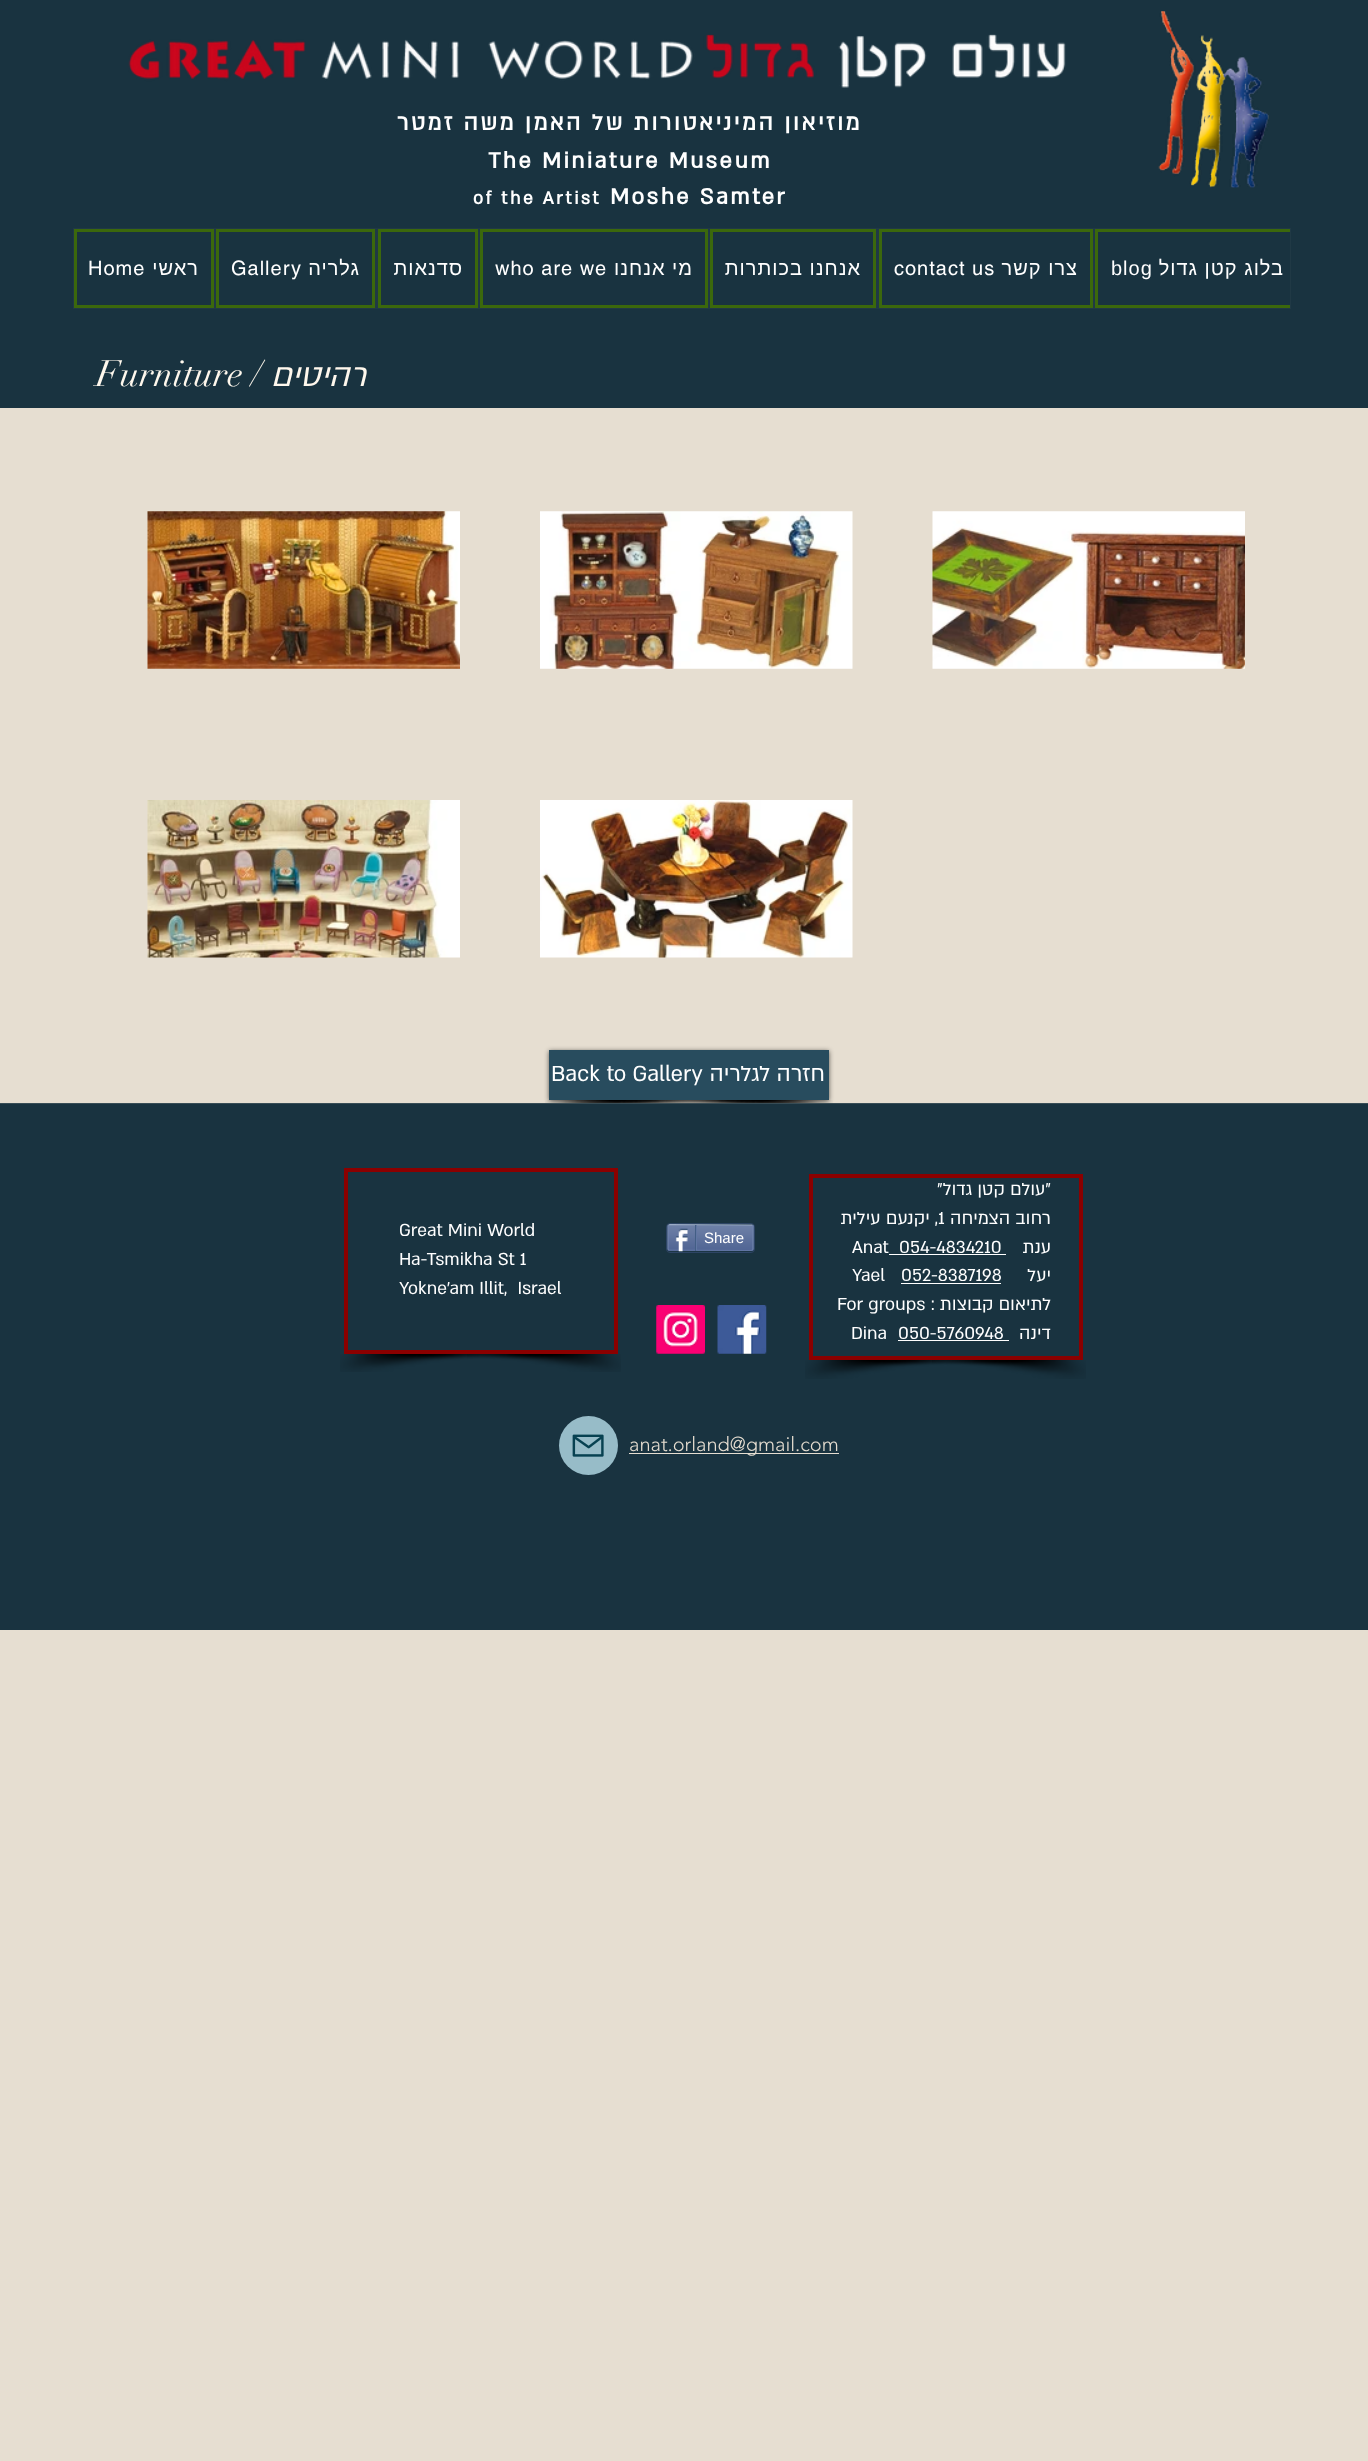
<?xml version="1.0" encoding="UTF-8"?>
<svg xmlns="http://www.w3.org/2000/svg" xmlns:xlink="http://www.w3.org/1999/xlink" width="1368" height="2461">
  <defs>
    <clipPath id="clip1"><rect x="74" y="229" width="1216" height="79" /></clipPath>
  </defs>
  <rect width="100%" height="100%" fill="#e6ded1" />
  <rect width="1368" height="408" fill="#193340" />
  <image x="1158" y="11" width="111" height="177" xlink:href="image1.png" />
  <image x="128" y="34" width="938" height="54" xlink:href="image2.png" />
  <image x="1158" y="11" width="111" height="177" xlink:href="image3.png" />
  <rect x="73" y="228" width="1218" height="81" fill="#203945" />
  <rect x="75.5" y="230.5" width="137" height="76" fill="#193340" stroke="#3b680c" stroke-width="3" />
  <rect x="217.5" y="230.5" width="156" height="76" fill="#193340" stroke="#3b680c" stroke-width="3" />
  <rect x="379.5" y="230.5" width="97" height="76" fill="#193340" stroke="#3b680c" stroke-width="3" />
  <rect x="481.5" y="230.5" width="225" height="76" fill="#193340" stroke="#3b680c" stroke-width="3" />
  <rect x="711.5" y="230.5" width="163" height="76" fill="#193340" stroke="#3b680c" stroke-width="3" />
  <rect x="880.5" y="230.5" width="211" height="76" fill="#193340" stroke="#3b680c" stroke-width="3" />
  <rect x="1098" y="232" width="192" height="73" fill="#193340" />
  <g clip-path="url(#clip1)">
    <rect x="1096.5" y="230.5" width="201" height="76" fill="none" stroke="#3b680c" stroke-width="3" />
  </g>
  <image x="147" y="511" width="313" height="158" xlink:href="image4.png" />
  <image x="540" y="511" width="313" height="158" xlink:href="image5.png" />
  <image x="932" y="511" width="313" height="158" xlink:href="image6.png" />
  <image x="147" y="800" width="313" height="158" xlink:href="image7.png" />
  <image x="540" y="800" width="313" height="158" xlink:href="image8.png" />
  <image x="545" y="1100" width="185" height="3" xlink:href="image9.png" />
  <image x="666" y="1100" width="167" height="3" xlink:href="image10.png" />
  <rect x="549" y="1051" width="280" height="50" fill="#000000" fill-opacity="0.6" filter="blur(2.5px)" />
  <rect x="549" y="1050" width="280" height="50" fill="#284c5e" />
  <rect y="1104" width="1368" height="526" fill="#193340" />
  <rect y="1103" width="1368" height="1" fill="#384d56" />
  <rect x="889" y="1254" width="117" height="1" fill="#ffffff" />
  <rect x="901" y="1283" width="100" height="1" fill="#ffffff" />
  <rect x="898" y="1340" width="111" height="1" fill="#ffffff" />
  <rect x="811" y="1176" width="270" height="182" fill="none" stroke="#8b0000" stroke-width="4" />
  <image x="805" y="1360" width="166" height="19" xlink:href="image11.png" />
  <image x="932" y="1360" width="154" height="19" xlink:href="image12.png" />
  <rect x="346" y="1170" width="270" height="182" fill="none" stroke="#8b0000" stroke-width="4" />
  <image x="340" y="1354" width="165" height="18" xlink:href="image13.png" />
  <image x="467" y="1354" width="154" height="18" xlink:href="image14.png" />
  <rect x="666.5" y="1223.5" width="88" height="29" rx="3.5" fill="none" stroke="#2d4565" />
  <image x="667" y="1225" width="87" height="27" xlink:href="image15.png" />
  <path d="M 668.5 1225 l 1.5 -0.5 l 82.5 0.5" fill="none" stroke="#9aabc6" stroke-width="1.2" />
  <path d="M 752.5 1225 l 0.5 1 v 23 l -0.5 1" fill="none" stroke="#6f83ad" stroke-width="1.2" />
  <path d="M 752.5 1250 l -1.5 0.5 l -82.5 -0.5" fill="none" stroke="#6176a3" stroke-width="1.2" />
  <path d="M 668.5 1250 l -0.5 -1 v -23 l 0.5 -1" fill="none" stroke="#6f83ad" stroke-width="1.2" />
  <image x="675" y="1228" width="13" height="24" xlink:href="image16.png" />
  <rect x="695" y="1225" width="1" height="26" fill="#425e85" />
  <rect x="696" y="1225" width="1" height="25" fill="#6176a3" />
  <image x="656" y="1305" width="49" height="49" xlink:href="image17.png" />
  <image x="717" y="1305" width="50" height="49" xlink:href="image18.png" />
  <circle cx="588.5" cy="1445.5" r="29.5" fill="#97bcc8" />
  <image x="572" y="1434" width="32" height="23" xlink:href="image19.png" />
  <rect x="629" y="1453" width="210" height="1" fill="#e6ded1" />
  <text x="862" y="130" style="font-family: 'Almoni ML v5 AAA'; font-size: 25px; font-weight: bold; letter-spacing: 2.5px; direction: rtl; fill: #ffffff">מוזיאון המיניאטורות של האמן משה זמטר</text>
  <text x="488" y="168" style="font-family: 'Almoni ML v5 AAA'; font-size: 25px; font-weight: bold; letter-spacing: 2.5px; fill: #ffffff">The Miniature Museum</text>
  <text x="473" y="204" style="font-family: 'Almoni ML v5 AAA'; font-size: 20px; font-weight: bold; letter-spacing: 2.5px; fill: #ffffff">of the Artist</text>
  <text x="610" y="204" style="font-family: 'Almoni ML v5 AAA'; font-size: 25px; font-weight: bold; letter-spacing: 2.5px; fill: #ffffff">Moshe Samter</text>
  <text x="88" y="275" style="font-family: helvetica; font-size: 20px; letter-spacing: 1px; fill: #ffffff">Home</text>
  <text x="199" y="275" style="font-family: Liberation Sans; font-size: 20px; letter-spacing: 1px; direction: rtl; fill: #ffffff">ראשי</text>
  <text x="231" y="275" style="font-family: helvetica; font-size: 20px; letter-spacing: 1px; fill: #ffffff">Gallery</text>
  <text x="360" y="275" style="font-family: Liberation Sans; font-size: 20px; letter-spacing: 1px; direction: rtl; fill: #ffffff">גלריה</text>
  <text x="463" y="275" style="font-family: Liberation Sans; font-size: 20px; letter-spacing: 1px; direction: rtl; fill: #ffffff">סדנאות</text>
  <text x="495" y="275" style="font-family: helvetica; font-size: 20px; letter-spacing: 1px; fill: #ffffff">who are we</text>
  <text x="693" y="275" style="font-family: Liberation Sans; font-size: 20px; letter-spacing: 1px; direction: rtl; fill: #ffffff">מי אנחנו</text>
  <text x="861" y="275" style="font-family: Liberation Sans; font-size: 20px; letter-spacing: 1px; direction: rtl; fill: #ffffff">אנחנו בכותרות</text>
  <text x="894" y="275" style="font-family: helvetica; font-size: 20px; letter-spacing: 1px; fill: #ffffff">contact us</text>
  <text x="1078" y="275" style="font-family: Liberation Sans; font-size: 20px; letter-spacing: 1px; direction: rtl; fill: #ffffff">צרו קשר</text>
  <text x="1111" y="275" style="font-family: Liberation Sans; font-size: 20px; letter-spacing: 1px; fill: #ffffff">blog</text>
  <text x="1284" y="275" style="font-family: Liberation Sans; font-size: 20px; letter-spacing: 1px; direction: rtl; fill: #ffffff">בלוג קטן גדול</text>
  <text x="96" y="386" style="font-family: didot; font-size: 36.25px; fill: #fff8ed">Furniture /</text>
  <text x="366" y="386" style="font-family: 'Almoni ML v5 AAA'; font-size: 36.25px; font-style: italic; direction: rtl; fill: #fff8ed">רהיטים</text>
  <text x="551" y="1081" style="font-family: 'Almoni ML v5 AAA'; font-size: 25px; fill: #ffffff">Back to Gallery</text>
  <text x="825" y="1081" style="font-family: 'Almoni ML v5 AAA'; font-size: 25px; direction: rtl; fill: #ffffff">חזרה לגלריה</text>
  <text x="399" y="1236" style="font-family: 'Almoni ML v5 AAA'; font-size: 20px; fill: #ffffff">Great Mini World</text>
  <text x="399" y="1265" style="font-family: 'Almoni ML v5 AAA'; font-size: 20px; fill: #ffffff">Ha-Tsmikha St 1</text>
  <text x="399" y="1294" style="font-family: 'Almoni ML v5 AAA'; font-size: 20px; fill: #ffffff" xml:space="preserve">Yokne'am Illit,  Israel</text>
  <text x="704" y="1243" style="font-family: Liberation Sans; font-size: 15px; fill: #ffffff">Share</text>
  <text x="1051" y="1195" style="font-family: 'Almoni ML v5 AAA'; font-size: 20px; direction: rtl; fill: #ffffff">"עולם קטן גדול"</text>
  <text x="938" y="1224" style="font-family: 'Almoni ML v5 AAA'; font-size: 20px; direction: rtl; fill: #ffffff">, יקנעם עילית</text>
  <text x="938" y="1224" style="font-family: 'Almoni ML v5 AAA'; font-size: 20px; fill: #ffffff">1</text>
  <text x="1051" y="1224" style="font-family: 'Almoni ML v5 AAA'; font-size: 20px; direction: rtl; fill: #ffffff">רחוב הצמיחה</text>
  <text x="852" y="1253" style="font-family: 'Almoni ML v5 AAA'; font-size: 20px; fill: #ffffff">Anat</text>
  <text x="899" y="1253" style="font-family: 'Almoni ML v5 AAA'; font-size: 20px; fill: #ffffff">054-4834210</text>
  <text x="1051" y="1253" style="font-family: 'Almoni ML v5 AAA'; font-size: 20px; direction: rtl; fill: #ffffff">ענת</text>
  <text x="852" y="1281" style="font-family: 'Almoni ML v5 AAA'; font-size: 20px; fill: #ffffff">Yael</text>
  <text x="901" y="1281" style="font-family: 'Almoni ML v5 AAA'; font-size: 20px; fill: #ffffff">052-8387198</text>
  <text x="1051" y="1281" style="font-family: 'Almoni ML v5 AAA'; font-size: 20px; direction: rtl; fill: #ffffff">יעל</text>
  <text x="837" y="1310" style="font-family: 'Almoni ML v5 AAA'; font-size: 20px; fill: #ffffff">For groups</text>
  <text x="1051" y="1310" style="font-family: 'Almoni ML v5 AAA'; font-size: 20px; direction: rtl; fill: #ffffff">לתיאום קבוצות :</text>
  <text x="851" y="1339" style="font-family: 'Almoni ML v5 AAA'; font-size: 20px; fill: #ffffff">Dina</text>
  <text x="898" y="1339" style="font-family: 'Almoni ML v5 AAA'; font-size: 20px; fill: #ffffff">050-5760948</text>
  <text x="1051" y="1339" style="font-family: 'Almoni ML v5 AAA'; font-size: 20px; direction: rtl; fill: #ffffff">דינה</text>
  <text x="629" y="1451" style="font-family: 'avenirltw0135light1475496'; font-size: 20px; font-weight: 300; fill: #e6ded1">anat.orland@gmail.com</text>
</svg>
